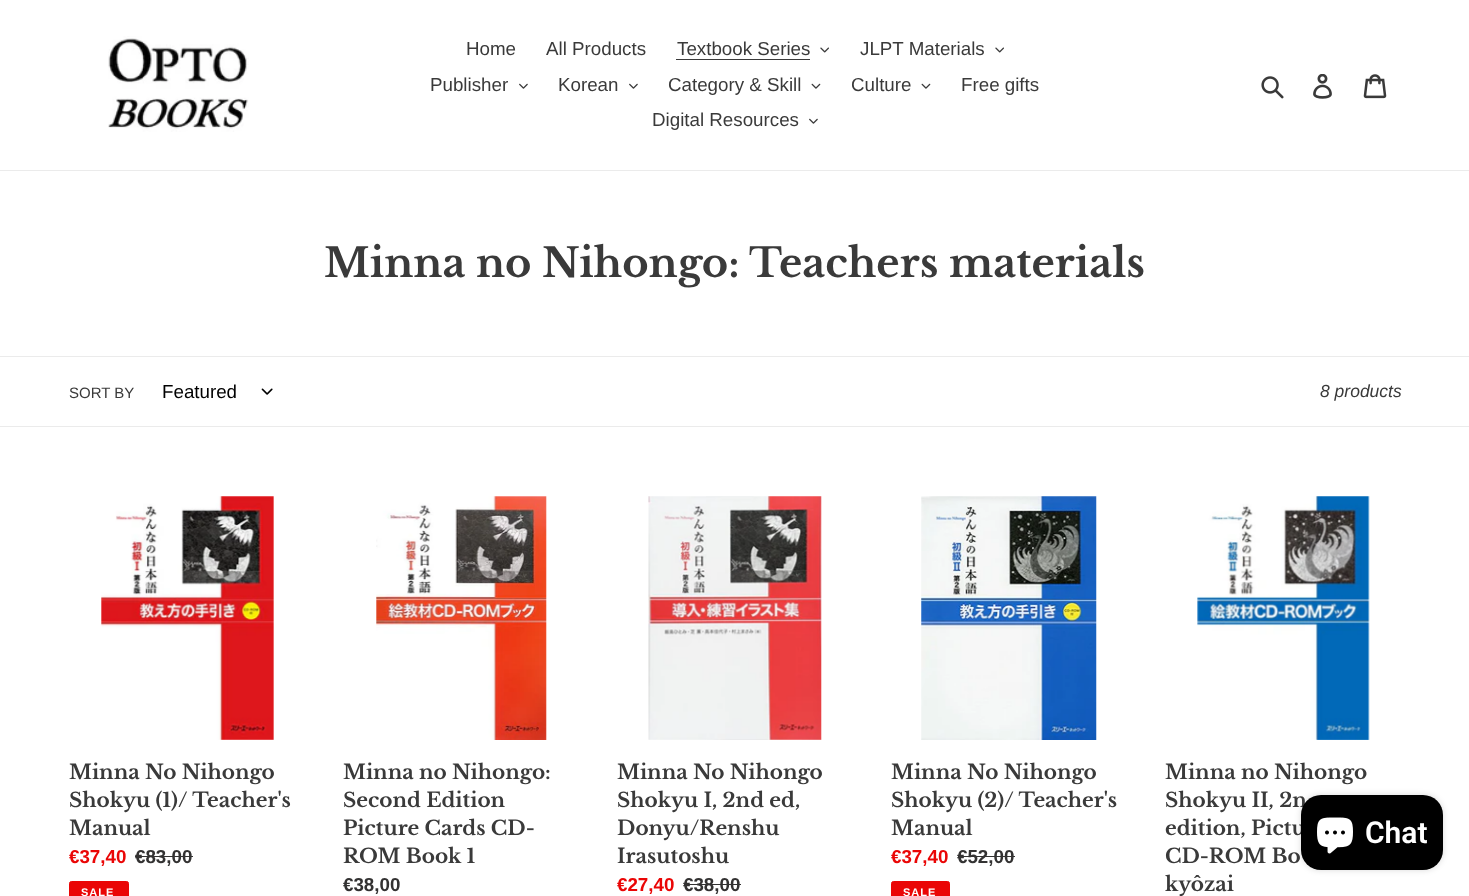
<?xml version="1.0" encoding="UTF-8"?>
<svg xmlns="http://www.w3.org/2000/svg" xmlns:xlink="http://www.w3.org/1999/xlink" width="1469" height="896">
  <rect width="100%" height="100%" fill="#ffffff" />
  <rect y="170" width="1469" height="1" fill="#ebebeb" />
  <image x="108" y="36" width="141" height="96" xlink:href="image1.png" />
  <rect x="676" y="59" width="134" height="1" fill="#3a3a3a" />
  <image x="820" y="47" width="9" height="6" xlink:href="image2.png" />
  <image x="995" y="47" width="9" height="6" xlink:href="image2.png" />
  <image x="519" y="83" width="9" height="6" xlink:href="image3.png" />
  <image x="629" y="83" width="9" height="6" xlink:href="image3.png" />
  <image x="811" y="83" width="10" height="6" xlink:href="image4.png" />
  <image x="921" y="83" width="10" height="6" xlink:href="image4.png" />
  <image x="809" y="118" width="9" height="6" xlink:href="image3.png" />
  <image x="1261" y="76" width="23" height="23" xlink:href="image5.png" />
  <image x="1313" y="74" width="19" height="25" xlink:href="image6.png" />
  <image x="1363" y="74" width="24" height="25" xlink:href="image7.png" />
  <rect y="356" width="1469" height="1" fill="#ebebeb" />
  <rect y="426" width="1469" height="1" fill="#ebebeb" />
  <image x="261" y="388" width="12" height="7" xlink:href="image8.png" />
  <image x="101" y="496" width="173" height="244" xlink:href="image9.png" />
  <rect x="135" y="856" width="58" height="1" fill="#333232" />
  <rect x="69.5" y="881.5" width="59" height="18" rx="2" fill="#ea0606" stroke="#ea0606" />
  <image x="376" y="496" width="171" height="244" xlink:href="image10.png" />
  <image x="648" y="496" width="174" height="244" xlink:href="image11.png" />
  <rect x="684" y="884" width="57" height="1" fill="#333232" />
  <image x="921" y="496" width="176" height="244" xlink:href="image12.png" />
  <rect x="958" y="856" width="57" height="1" fill="#333232" />
  <rect x="891.5" y="881.5" width="58" height="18" rx="2" fill="#ea0606" stroke="#ea0606" />
  <image x="1197" y="496" width="173" height="244" xlink:href="image13.png" />
  <rect x="1301" y="795" width="142" height="75" rx="20" fill="#000000" fill-opacity="0.15" filter="blur(3px)" />
  <text x="466" y="55" style="font-family: Liberation Sans; font-size: 18.75px; fill: #3a3a3a">Home</text>
  <text x="546" y="55" style="font-family: Liberation Sans; font-size: 18.75px; fill: #3a3a3a">All Products</text>
  <text x="677" y="55" style="font-family: Liberation Sans; font-size: 18.75px; fill: #3a3a3a">Textbook Series</text>
  <text x="860" y="55" style="font-family: Liberation Sans; font-size: 18.75px; fill: #3a3a3a">JLPT Materials</text>
  <text x="430" y="91" style="font-family: Liberation Sans; font-size: 18.75px; fill: #3a3a3a">Publisher</text>
  <text x="558" y="91" style="font-family: Liberation Sans; font-size: 18.75px; fill: #3a3a3a">Korean</text>
  <text x="668" y="91" style="font-family: Liberation Sans; font-size: 18.75px; fill: #3a3a3a">Category &amp; Skill</text>
  <text x="851" y="91" style="font-family: Liberation Sans; font-size: 18.75px; fill: #3a3a3a">Culture</text>
  <text x="961" y="91" style="font-family: Liberation Sans; font-size: 18.75px; fill: #3a3a3a">Free gifts</text>
  <text x="652" y="126" style="font-family: Liberation Sans; font-size: 18.75px; fill: #3a3a3a">Digital Resources</text>
  <text x="324" y="277" style="font-family: Libre Baskerville; font-size: 40px; font-weight: bold; fill: #3a3a3a">Minna no Nihongo: Teachers materials</text>
  <text x="69" y="398" style="font-family: Liberation Sans; font-size: 15px; fill: #3a3a3a">SORT BY</text>
  <text x="162" y="398" style="font-family: Liberation Sans; font-size: 18.75px; fill: #000000">Featured</text>
  <text x="1320" y="397" style="font-family: Liberation Sans; font-size: 17.5px; font-style: italic; fill: #3a3a3a">8 products</text>
  <text x="69" y="779" style="font-family: Libre Baskerville; font-size: 20px; font-weight: bold; fill: #3a3a3a">Minna No Nihongo</text>
  <text x="69" y="807" style="font-family: Libre Baskerville; font-size: 20px; font-weight: bold; fill: #3a3a3a">Shokyu (1)/ Teacher's</text>
  <text x="69" y="835" style="font-family: Libre Baskerville; font-size: 20px; font-weight: bold; fill: #3a3a3a">Manual</text>
  <text x="69" y="863" style="font-family: Liberation Sans; font-size: 18.75px; font-weight: bold; fill: #ea0606">€37,40</text>
  <text x="135" y="863" style="font-family: Liberation Sans; font-size: 18.75px; font-weight: bold; fill: #333232">€83,00</text>
  <text x="81" y="896" style="font-family: Liberation Sans; font-size: 11px; font-weight: bold; letter-spacing: 1px; fill: #ffffff">SALE</text>
  <text x="343" y="779" style="font-family: Libre Baskerville; font-size: 20px; font-weight: bold; fill: #3a3a3a">Minna no Nihongo:</text>
  <text x="343" y="807" style="font-family: Libre Baskerville; font-size: 20px; font-weight: bold; fill: #3a3a3a">Second Edition</text>
  <text x="343" y="835" style="font-family: Libre Baskerville; font-size: 20px; font-weight: bold; fill: #3a3a3a">Picture Cards CD-</text>
  <text x="343" y="863" style="font-family: Libre Baskerville; font-size: 20px; font-weight: bold; fill: #3a3a3a">ROM Book 1</text>
  <text x="343" y="891" style="font-family: Liberation Sans; font-size: 18.75px; font-weight: bold; fill: #333232">€38,00</text>
  <text x="617" y="779" style="font-family: Libre Baskerville; font-size: 20px; font-weight: bold; fill: #3a3a3a">Minna No Nihongo</text>
  <text x="617" y="807" style="font-family: Libre Baskerville; font-size: 20px; font-weight: bold; fill: #3a3a3a">Shokyu I, 2nd ed,</text>
  <text x="617" y="835" style="font-family: Libre Baskerville; font-size: 20px; font-weight: bold; fill: #3a3a3a">Donyu/Renshu</text>
  <text x="617" y="863" style="font-family: Libre Baskerville; font-size: 20px; font-weight: bold; fill: #3a3a3a">Irasutoshu</text>
  <text x="617" y="891" style="font-family: Liberation Sans; font-size: 18.75px; font-weight: bold; fill: #ea0606">€27,40</text>
  <text x="683" y="891" style="font-family: Liberation Sans; font-size: 18.75px; font-weight: bold; fill: #333232">€38,00</text>
  <text x="891" y="779" style="font-family: Libre Baskerville; font-size: 20px; font-weight: bold; fill: #3a3a3a">Minna No Nihongo</text>
  <text x="891" y="807" style="font-family: Libre Baskerville; font-size: 20px; font-weight: bold; fill: #3a3a3a">Shokyu (2)/ Teacher's</text>
  <text x="891" y="835" style="font-family: Libre Baskerville; font-size: 20px; font-weight: bold; fill: #3a3a3a">Manual</text>
  <text x="891" y="863" style="font-family: Liberation Sans; font-size: 18.75px; font-weight: bold; fill: #ea0606">€37,40</text>
  <text x="957" y="863" style="font-family: Liberation Sans; font-size: 18.75px; font-weight: bold; fill: #333232">€52,00</text>
  <text x="903" y="896" style="font-family: Liberation Sans; font-size: 11px; font-weight: bold; letter-spacing: 1px; fill: #ffffff">SALE</text>
  <text x="1165" y="779" style="font-family: Libre Baskerville; font-size: 20px; font-weight: bold; fill: #3a3a3a">Minna no Nihongo</text>
  <text x="1165" y="807" style="font-family: Libre Baskerville; font-size: 20px; font-weight: bold; fill: #3a3a3a">Shokyu II, 2n</text>
  <text x="1165" y="835" style="font-family: Libre Baskerville; font-size: 20px; font-weight: bold; fill: #3a3a3a">edition, Pictu</text>
  <text x="1165" y="863" style="font-family: Libre Baskerville; font-size: 20px; font-weight: bold; fill: #3a3a3a">CD-ROM Bo</text>
  <text x="1165" y="891" style="font-family: Libre Baskerville; font-size: 20px; font-weight: bold; fill: #3a3a3a">kyôzai</text>
  <rect x="1301" y="795" width="142" height="75" rx="20" fill="#000000" />
  <image x="1317" y="817" width="36" height="37" xlink:href="image14.png" />
  <text x="1365" y="843" style="font-family: Roboto; font-size: 30px; font-weight: 600; fill: #ffffff">Chat</text>
</svg>
